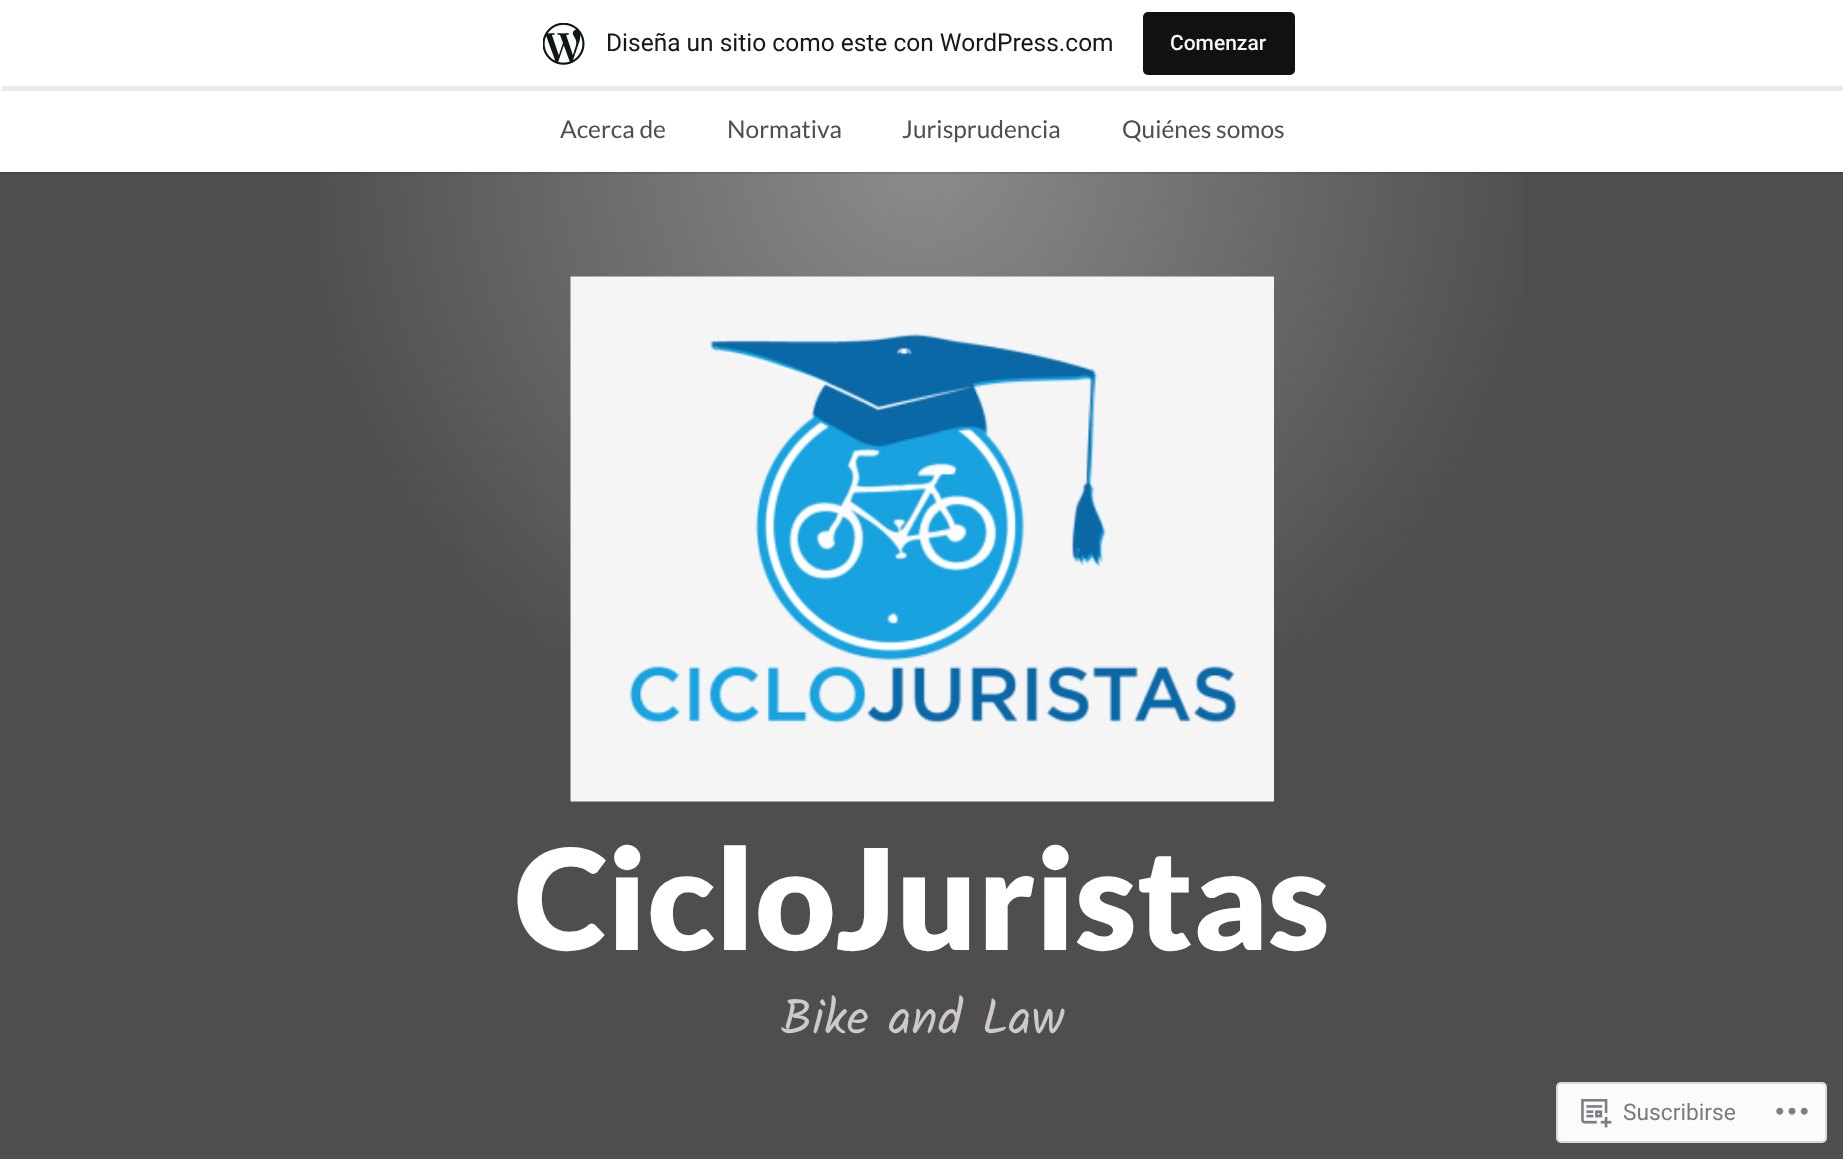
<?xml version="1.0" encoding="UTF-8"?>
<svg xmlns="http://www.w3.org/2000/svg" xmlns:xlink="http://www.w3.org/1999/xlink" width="1843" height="1159">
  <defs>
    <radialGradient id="g1" gradientUnits="userSpaceOnUse" cx="922" cy="156" r="1237"><stop offset="0" stop-color="#8d8c8c" /><stop offset="0.5" stop-color="#504e4e" /><stop offset="1" stop-color="#504e4e" /></radialGradient>
  </defs>
  <rect width="100%" height="100%" fill="#504d4d" />
  <rect x="319" y="172" width="1206" height="587" fill="url(#g1)" />
  <rect x="2" y="88" width="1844" height="85" fill="#000000" fill-opacity="0.2" filter="blur(1px)" />
  <rect width="1843" height="172" fill="#ffffff" />
  <path d="M 2 86 v 5 h 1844 v -86 h -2 v 81 z" fill="#000000" fill-opacity="0.08" />
  <image x="543" y="23" width="42" height="42" xlink:href="image1.png" />
  <rect x="1143" y="12" width="152" height="63" rx="5" fill="#111111" />
  <image x="570" y="276" width="704" height="526" xlink:href="image2.png" />
  <rect x="1557" y="1083" width="269" height="59" rx="4" fill="#fcfbfb" stroke="#d9d9db" stroke-width="2" />
  <image x="1581" y="1099" width="31" height="29" xlink:href="image3.png" />
  <image x="1776" y="1107" width="32" height="8" xlink:href="image4.png" />
  <text x="606" y="51" style="font-family: Roboto; font-size: 24.5px; fill: #171717">Diseña un sitio como este con WordPress.com</text>
  <text x="1170" y="50" style="font-family: Roboto; font-size: 21px; font-weight: 500; fill: #f6f7f7">Comenzar</text>
  <text x="560" y="138" style="font-family: Lato; font-size: 24.5px; fill: #504d4d">Acerca de</text>
  <text x="727" y="138" style="font-family: Lato; font-size: 24.5px; fill: #504d4d">Normativa</text>
  <text x="902" y="138" style="font-family: Lato; font-size: 24.5px; fill: #504d4d">Jurisprudencia</text>
  <text x="1122" y="138" style="font-family: Lato; font-size: 24.5px; fill: #504d4d">Quiénes somos</text>
  <text x="515" y="950" style="font-family: Lato; font-size: 140px; font-weight: 900; fill: #ffffff">CicloJuristas</text>
  <text x="781" y="1034" style="font-family: Kalam; font-size: 49px; fill: #cec9c9">Bike and Law</text>
  <text x="1623" y="1120" style="font-family: Roboto; font-size: 22.75px; fill: #777b81">Suscribirse</text>
</svg>
